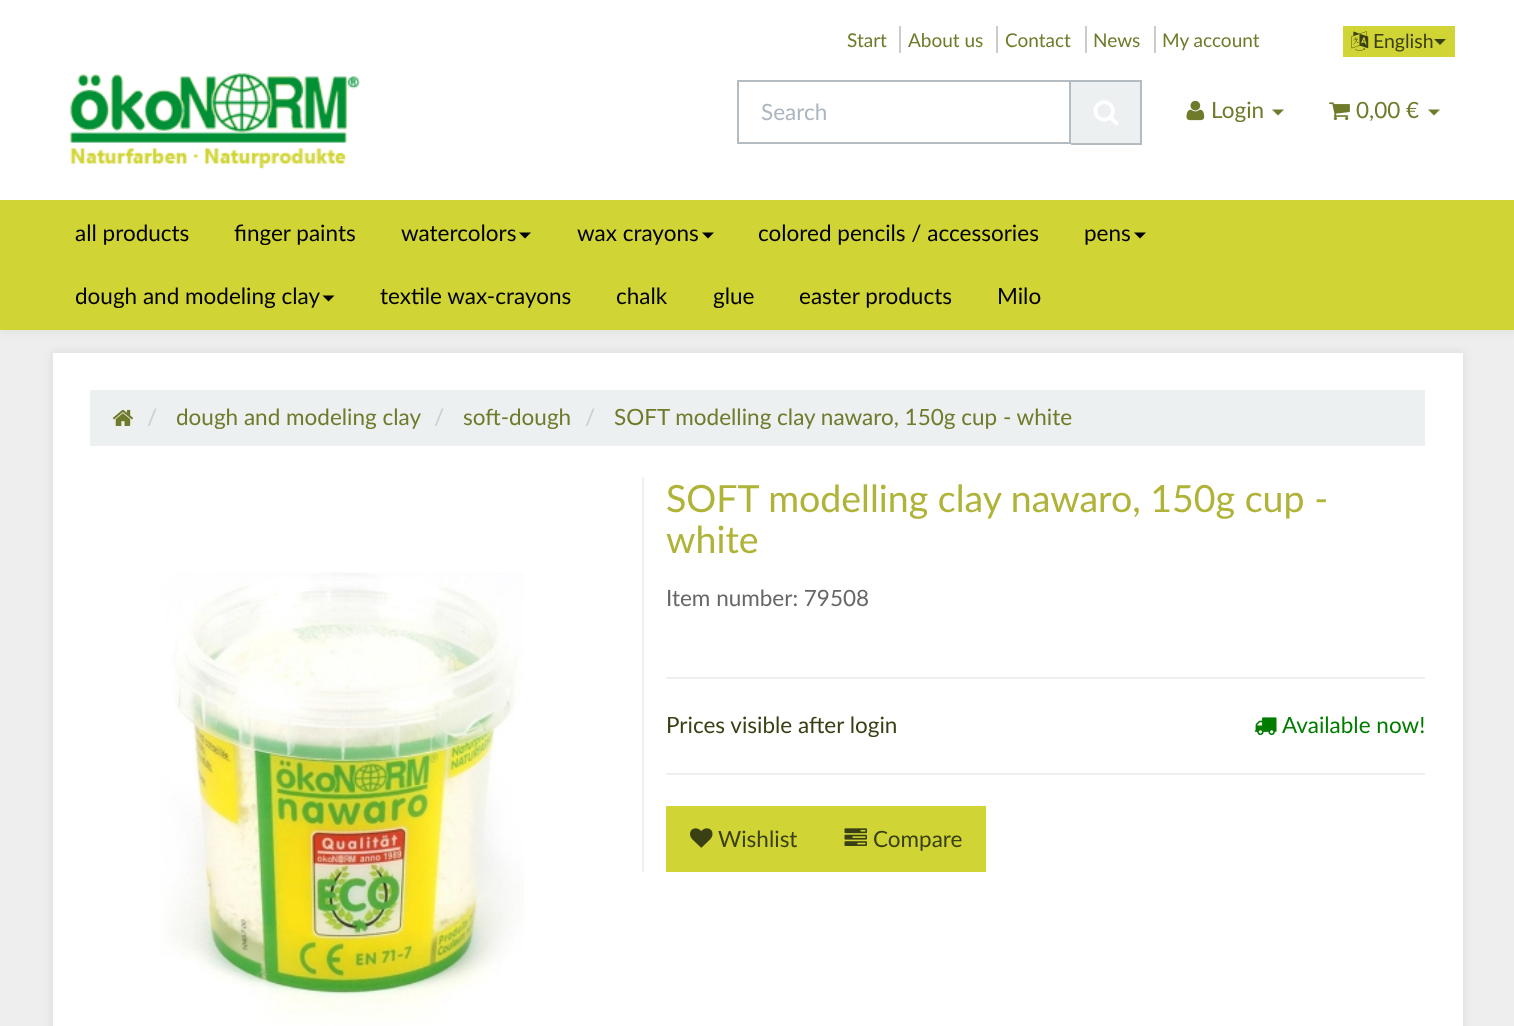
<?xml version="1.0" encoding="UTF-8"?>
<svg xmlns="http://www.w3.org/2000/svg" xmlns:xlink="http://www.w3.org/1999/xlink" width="1514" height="1026">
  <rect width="100%" height="100%" fill="#eeeeee" />
  <rect x="-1" y="-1" width="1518" height="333" fill="#6a6a6a" fill-opacity="0.1" filter="blur(4px)" />
  <rect width="1514" height="200" fill="#ffffff" />
  <rect x="899" y="26" width="2" height="27" fill="#cccccc" />
  <rect x="996" y="26" width="2" height="27" fill="#cccccc" />
  <rect x="1085" y="26" width="2" height="27" fill="#cccccc" />
  <rect x="1154" y="26" width="2" height="27" fill="#cccccc" />
  <rect x="1343" y="26" width="112" height="31" fill="#d0d434" />
  <image x="1351" y="31" width="18" height="20" xlink:href="image1.png" />
  <path d="M 1434 39 h 12 l -6 6 z" fill="#3a4014" />
  <image x="70" y="73" width="291" height="96" xlink:href="image2.png" />
  <rect x="738" y="81" width="332" height="62" fill="none" stroke="#b4bcc2" stroke-width="2" />
  <rect x="1071" y="82" width="69" height="61" fill="#ecf0f1" />
  <rect x="1071" y="80" width="71" height="2" fill="#b4bcc2" />
  <rect x="1140" y="80" width="2" height="64" fill="#b4bcc2" />
  <rect x="1071" y="143" width="71" height="2" fill="#b4bcc2" />
  <image x="1093" y="100" width="26" height="26" xlink:href="image3.png" />
  <image x="1186" y="100" width="19" height="21" xlink:href="image4.png" />
  <path d="M 1272 109.5 h 12 l -6 6 z" fill="#6f7a2a" />
  <image x="1329" y="102" width="21" height="19" xlink:href="image5.png" />
  <path d="M 1428 109.5 h 12 l -6 6 z" fill="#6f7a2a" />
  <rect y="200" width="1514" height="130" fill="#d0d434" />
  <path d="M 519 232.5 h 12 l -6 6 z" fill="#000000" />
  <path d="M 702 232.5 h 12 l -6 6 z" fill="#000000" />
  <path d="M 1134 232.5 h 12 l -6 6 z" fill="#000000" />
  <path d="M 322.5 295.5 h 12 l -6 6 z" fill="#000000" />
  <rect x="51" y="351" width="1413" height="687" fill="#6a6a6a" fill-opacity="0.1" filter="blur(4px)" />
  <rect x="53" y="353" width="1410" height="673" fill="#ffffff" />
  <rect x="90" y="390" width="1335" height="56" fill="#ecf0f1" />
  <image x="112" y="409" width="21" height="17" xlink:href="image6.png" />
  <image x="158" y="572" width="366" height="454" xlink:href="image7.png" />
  <rect x="642" y="477" width="2" height="395" fill="#ecf0f1" />
  <rect x="666" y="677" width="759" height="2" fill="#ecf0f1" />
  <image x="1254" y="717" width="23" height="19" xlink:href="image8.png" />
  <rect x="666" y="773" width="759" height="2" fill="#ecf0f1" />
  <rect x="666" y="806" width="320" height="66" fill="#d0d434" />
  <image x="690" y="828" width="23" height="20" xlink:href="image9.png" />
  <image x="844" y="828" width="23" height="18" xlink:href="image10.png" />
  <text x="847" y="47" style="font-family: Lato; font-size: 19px; fill: #6f7a2a">Start</text>
  <text x="908" y="47" style="font-family: Lato; font-size: 19px; fill: #6f7a2a">About us</text>
  <text x="1005" y="47" style="font-family: Lato; font-size: 19px; fill: #6f7a2a">Contact</text>
  <text x="1093" y="47" style="font-family: Lato; font-size: 19px; fill: #6f7a2a">News</text>
  <text x="1162" y="47" style="font-family: Lato; font-size: 19px; fill: #6f7a2a">My account</text>
  <text x="1373" y="48" style="font-family: Lato; font-size: 19.5px; fill: #3a4014">English</text>
  <text x="761" y="120" style="font-family: Lato; font-size: 22.5px; fill: #acb6c0">Search</text>
  <text x="1211" y="118" style="font-family: Lato; font-size: 22.5px; fill: #6f7a2a">Login</text>
  <text x="1356" y="118" style="font-family: Lato; font-size: 22.5px; fill: #6f7a2a">0,00 €</text>
  <text x="75" y="241" style="font-family: Lato; font-size: 22.5px; fill: #000000">all products</text>
  <text x="234" y="241" style="font-family: Lato; font-size: 22.5px; fill: #000000">finger paints</text>
  <text x="401" y="241" style="font-family: Lato; font-size: 22.5px; fill: #000000">watercolors</text>
  <text x="577" y="241" style="font-family: Lato; font-size: 22.5px; fill: #000000">wax crayons</text>
  <text x="758" y="241" style="font-family: Lato; font-size: 22.5px; fill: #000000">colored pencils / accessories</text>
  <text x="1084" y="241" style="font-family: Lato; font-size: 22.5px; fill: #000000">pens</text>
  <text x="75" y="304" style="font-family: Lato; font-size: 22.5px; fill: #000000">dough and modeling clay</text>
  <text x="380" y="304" style="font-family: Lato; font-size: 22.5px; fill: #000000">textile wax-crayons</text>
  <text x="616" y="304" style="font-family: Lato; font-size: 22.5px; fill: #000000">chalk</text>
  <text x="713" y="304" style="font-family: Lato; font-size: 22.5px; fill: #000000">glue</text>
  <text x="799" y="304" style="font-family: Lato; font-size: 22.5px; fill: #000000">easter products</text>
  <text x="997" y="304" style="font-family: Lato; font-size: 22.5px; fill: #000000">Milo</text>
  <text x="147" y="425" style="font-family: Lato; font-size: 22.5px; fill: #cccccc">/</text>
  <text x="176" y="425" style="font-family: Lato; font-size: 22.5px; fill: #6f7a2a">dough and modeling clay</text>
  <text x="434" y="425" style="font-family: Lato; font-size: 22.5px; fill: #cccccc">/</text>
  <text x="463" y="425" style="font-family: Lato; font-size: 22.5px; fill: #6f7a2a">soft-dough</text>
  <text x="585" y="425" style="font-family: Lato; font-size: 22.5px; fill: #cccccc">/</text>
  <text x="614" y="425" style="font-family: Lato; font-size: 22.5px; fill: #6f7a2a">SOFT modelling clay nawaro, 150g cup - white</text>
  <text x="666" y="512" style="font-family: Lato; font-size: 37.5px; fill: #afb338">SOFT modelling clay nawaro, 150g cup -</text>
  <text x="666" y="553" style="font-family: Lato; font-size: 37.5px; fill: #afb338">white</text>
  <text x="666" y="606" style="font-family: Lato; font-size: 22.5px; fill: #676767">Item number: 79508</text>
  <text x="666" y="733" style="font-family: Lato; font-size: 22.5px; fill: #3a4014">Prices visible after login</text>
  <text x="1282" y="733" style="font-family: Lato; font-size: 22.5px; fill: #007c00">Available now!</text>
  <text x="718" y="847" style="font-family: Lato; font-size: 22.5px; fill: #3a4014">Wishlist</text>
  <text x="873" y="847" style="font-family: Lato; font-size: 22.5px; fill: #3a4014">Compare</text>
</svg>
